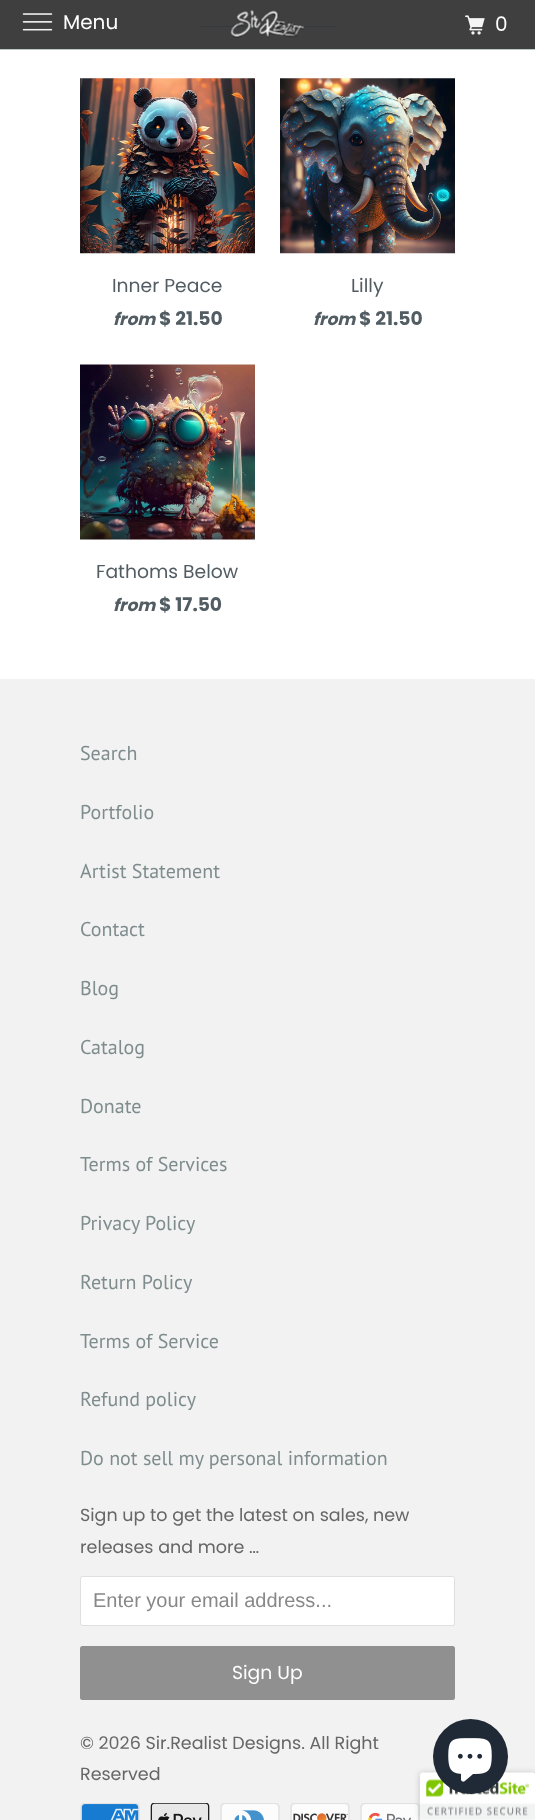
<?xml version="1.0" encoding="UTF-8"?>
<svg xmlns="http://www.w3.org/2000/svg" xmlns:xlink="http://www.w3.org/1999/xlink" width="535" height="1820">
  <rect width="100%" height="100%" fill="#ffffff" />
  <rect y="49" width="535" height="1" fill="#bcc9c9" />
  <rect width="535" height="49" fill="#3f3f3f" />
  <image x="22" y="13" width="31" height="18" xlink:href="image1.png" />
  <rect x="199" y="26" width="137" height="1" fill="#323a3e" />
  <image x="230" y="10" width="74" height="28" xlink:href="image2.png" />
  <image x="465" y="15" width="20" height="20" xlink:href="image3.png" />
  <image x="80" y="78" width="175" height="176" xlink:href="image4.png" />
  <image x="280" y="78" width="175" height="176" xlink:href="image5.png" />
  <image x="80" y="364" width="175" height="176" xlink:href="image6.png" />
  <rect y="679" width="535" height="1141" fill="#f2f2f2" />
  <rect x="80.5" y="1576.5" width="374" height="49" rx="2" fill="#ffffff" stroke="#dfdfdf" />
  <rect x="80" y="1646" width="375" height="54" rx="2.5" fill="#909090" />
  <image x="80" y="1803" width="60" height="17" xlink:href="image7.png" />
  <image x="150" y="1803" width="60" height="17" xlink:href="image8.png" />
  <image x="220" y="1803" width="60" height="17" xlink:href="image9.png" />
  <image x="290" y="1803" width="60" height="17" xlink:href="image10.png" />
  <image x="360" y="1803" width="60" height="17" xlink:href="image11.png" />
  <rect x="420" y="1773" width="115" height="47" rx="2.5" fill="#000000" fill-opacity="0.2" filter="blur(3px)" />
  <path d="M 422.5 1773 h 112.5 v 47 h -115 v -44.5 c 0 -1.5 1 -2.5 2.5 -2.5 z" fill="#ffffff" />
  <image x="420" y="1772" width="115" height="48" xlink:href="image13.png" />
  <circle cx="470.5" cy="1756.5" r="37.5" fill="#202a36" />
  <image x="448" y="1738" width="44" height="44" xlink:href="image12.png" />
  <text x="63" y="29" style="font-family: Poppins; font-size: 20px; fill: #ffffff">Menu</text>
  <text x="495" y="31" style="font-family: Poppins; font-size: 20px; fill: #ffffff">0</text>
  <text x="112" y="292" style="font-family: Poppins; font-size: 18.75px; fill: #525d63">Inner Peace</text>
  <text x="113" y="325" style="font-family: Poppins; font-size: 17px; font-weight: bold; font-style: italic; fill: #525d63">from</text>
  <text x="159" y="325" style="font-family: Poppins; font-size: 18.75px; font-weight: bold; fill: #525d63">$ 21.50</text>
  <text x="351" y="292" style="font-family: Poppins; font-size: 18.75px; fill: #525d63">Lilly</text>
  <text x="313" y="325" style="font-family: Poppins; font-size: 17px; font-weight: bold; font-style: italic; fill: #525d63">from</text>
  <text x="359" y="325" style="font-family: Poppins; font-size: 18.75px; font-weight: bold; fill: #525d63">$ 21.50</text>
  <text x="96" y="578" style="font-family: Poppins; font-size: 18.75px; fill: #525d63">Fathoms Below</text>
  <text x="113" y="611" style="font-family: Poppins; font-size: 17px; font-weight: bold; font-style: italic; fill: #525d63">from</text>
  <text x="159" y="611" style="font-family: Poppins; font-size: 18.75px; font-weight: bold; fill: #525d63">$ 17.50</text>
  <text x="80" y="760" style="font-family: PT Sans; font-size: 20px; fill: #7f8c8d">Search</text>
  <text x="80" y="819" style="font-family: PT Sans; font-size: 20px; fill: #7f8c8d">Portfolio</text>
  <text x="80" y="878" style="font-family: PT Sans; font-size: 20px; fill: #7f8c8d">Artist Statement</text>
  <text x="80" y="936" style="font-family: PT Sans; font-size: 20px; fill: #7f8c8d">Contact</text>
  <text x="80" y="995" style="font-family: PT Sans; font-size: 20px; fill: #7f8c8d">Blog</text>
  <text x="80" y="1054" style="font-family: PT Sans; font-size: 20px; fill: #7f8c8d">Catalog</text>
  <text x="80" y="1113" style="font-family: PT Sans; font-size: 20px; fill: #7f8c8d">Donate</text>
  <text x="80" y="1171" style="font-family: PT Sans; font-size: 20px; fill: #7f8c8d">Terms of Services</text>
  <text x="80" y="1230" style="font-family: PT Sans; font-size: 20px; fill: #7f8c8d">Privacy Policy</text>
  <text x="80" y="1289" style="font-family: PT Sans; font-size: 20px; fill: #7f8c8d">Return Policy</text>
  <text x="80" y="1348" style="font-family: PT Sans; font-size: 20px; fill: #7f8c8d">Terms of Service</text>
  <text x="80" y="1406" style="font-family: PT Sans; font-size: 20px; fill: #7f8c8d">Refund policy</text>
  <text x="80" y="1465" style="font-family: PT Sans; font-size: 20px; fill: #7f8c8d">Do not sell my personal information</text>
  <text x="80" y="1521" style="font-family: Poppins; font-size: 17.5px; fill: #666666">Sign up to get the latest on sales, new</text>
  <text x="80" y="1553" style="font-family: Poppins; font-size: 17.5px; fill: #666666">releases and more …</text>
  <text x="93" y="1607" style="font-family: Liberation Sans; font-size: 20px; fill: #888888">Enter your email address...</text>
  <text x="232" y="1679" style="font-family: Poppins; font-size: 18.75px; fill: #ffffff">Sign Up</text>
  <text x="80" y="1749" style="font-family: Poppins; font-size: 17.5px; fill: #666666">© 2026 Sir.Realist Designs. All Right</text>
  <text x="80" y="1780" style="font-family: Poppins; font-size: 17.5px; fill: #666666">Reserved</text>
</svg>
